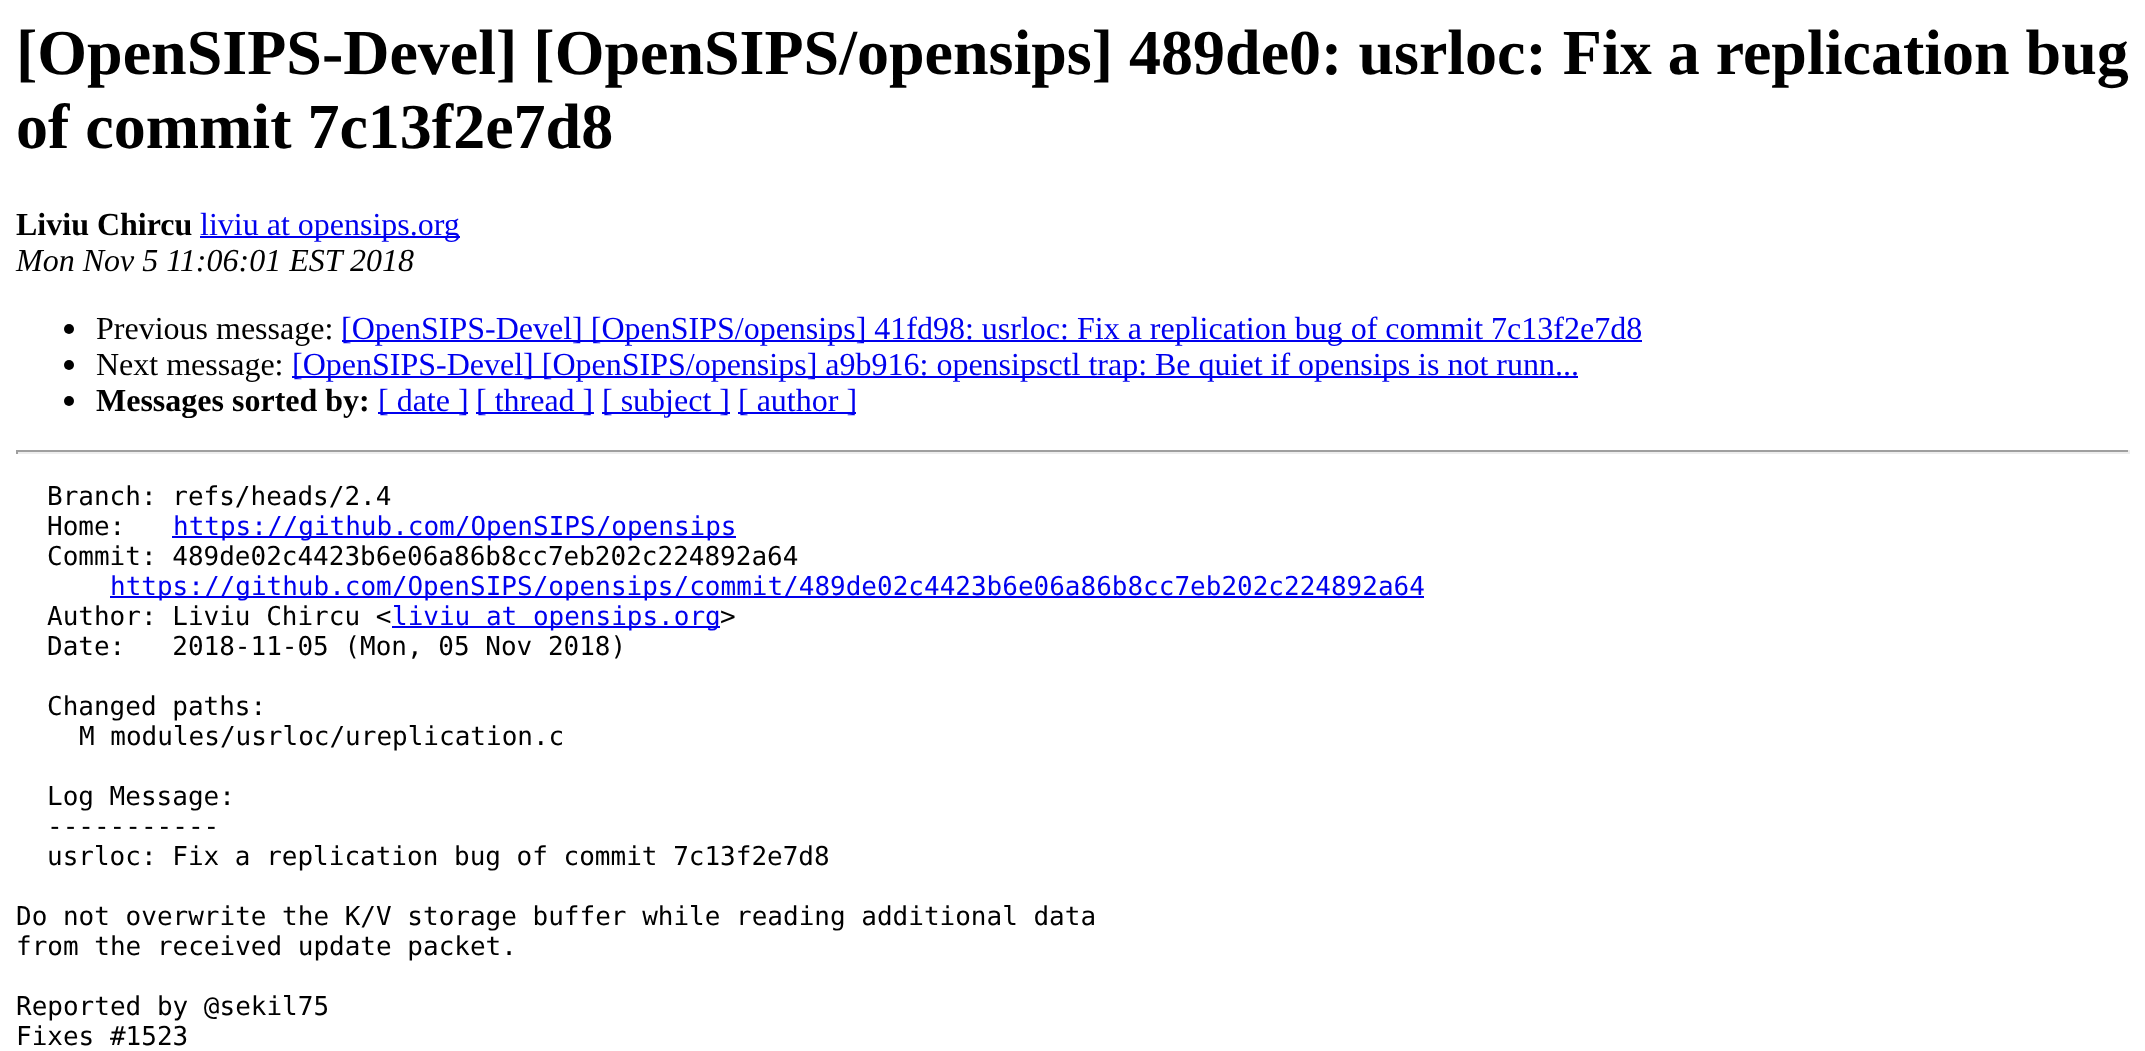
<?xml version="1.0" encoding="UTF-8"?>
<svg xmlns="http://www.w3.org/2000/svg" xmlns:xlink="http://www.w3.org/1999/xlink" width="2145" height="1051">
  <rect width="100%" height="100%" fill="#ffffff" />
  <rect x="200" y="236" width="260" height="2" fill="#0000ee" />
  <circle cx="69" cy="329" r="5" fill="#000000" />
  <rect x="342" y="340" width="1300" height="2" fill="#0000ee" />
  <circle cx="69" cy="365" r="5" fill="#000000" />
  <rect x="292" y="376" width="1286" height="2" fill="#0000ee" />
  <circle cx="69" cy="401" r="5" fill="#000000" />
  <rect x="378" y="412" width="90" height="2" fill="#0000ee" />
  <rect x="476" y="412" width="118" height="2" fill="#0000ee" />
  <rect x="602" y="412" width="128" height="2" fill="#0000ee" />
  <rect x="738" y="412" width="118" height="2" fill="#0000ee" />
  <rect x="16" y="450" width="2114" height="2" fill="#9f9f9f" />
  <rect x="2128" y="450" width="2" height="4" fill="#eeeeee" />
  <rect x="16" y="452" width="2114" height="2" fill="#eeeeee" />
  <rect x="16" y="450" width="2" height="4" fill="#9f9f9f" />
  <rect x="172" y="536" width="564" height="2" fill="#0000ee" />
  <rect x="110" y="596" width="1314" height="2" fill="#0000ee" />
  <rect x="392" y="626" width="328" height="2" fill="#0000ee" />
  <text x="16" y="74" style="font-family: Liberation Serif; font-size: 64px; font-weight: bold; fill: #000000">[OpenSIPS-Devel] [OpenSIPS/opensips] 489de0: usrloc: Fix a replication bug</text>
  <text x="16" y="148" style="font-family: Liberation Serif; font-size: 64px; font-weight: bold; fill: #000000">of commit 7c13f2e7d8</text>
  <text x="16" y="235" style="font-family: Liberation Serif; font-size: 32px; font-weight: bold; fill: #000000">Liviu Chircu</text>
  <text x="200" y="235" style="font-family: Liberation Serif; font-size: 32px; fill: #0000ee">liviu at opensips.org</text>
  <text x="16" y="271" style="font-family: Liberation Serif; font-size: 32px; font-style: italic; fill: #000000">Mon Nov 5 11:06:01 EST 2018</text>
  <text x="96" y="339" style="font-family: Liberation Serif; font-size: 32px; fill: #000000">Previous message:</text>
  <text x="341" y="339" style="font-family: Liberation Serif; font-size: 32px; fill: #0000ee">[OpenSIPS-Devel] [OpenSIPS/opensips] 41fd98: usrloc: Fix a replication bug of commit 7c13f2e7d8</text>
  <text x="96" y="375" style="font-family: Liberation Serif; font-size: 32px; fill: #000000">Next message:</text>
  <text x="292" y="375" style="font-family: Liberation Serif; font-size: 32px; fill: #0000ee">[OpenSIPS-Devel] [OpenSIPS/opensips] a9b916: opensipsctl trap: Be quiet if opensips is not runn...</text>
  <text x="96" y="411" style="font-family: Liberation Serif; font-size: 32px; font-weight: bold; fill: #000000">Messages sorted by:</text>
  <text x="378" y="411" style="font-family: Liberation Serif; font-size: 32px; fill: #0000ee">[ date ]</text>
  <text x="476" y="411" style="font-family: Liberation Serif; font-size: 32px; fill: #0000ee">[ thread ]</text>
  <text x="602" y="411" style="font-family: Liberation Serif; font-size: 32px; fill: #0000ee">[ subject ]</text>
  <text x="738" y="411" style="font-family: Liberation Serif; font-size: 32px; fill: #0000ee">[ author ]</text>
  <text x="47" y="505" style="font-family: DejaVu Sans Mono; font-size: 26px; fill: #000000">Branch: refs/heads/2.4</text>
  <text x="47" y="535" style="font-family: DejaVu Sans Mono; font-size: 26px; fill: #000000">Home:</text>
  <text x="173" y="535" style="font-family: DejaVu Sans Mono; font-size: 26px; fill: #0000ee">https://github.com/OpenSIPS/opensips</text>
  <text x="47" y="565" style="font-family: DejaVu Sans Mono; font-size: 26px; fill: #000000">Commit: 489de02c4423b6e06a86b8cc7eb202c224892a64</text>
  <text x="110" y="595" style="font-family: DejaVu Sans Mono; font-size: 26px; fill: #0000ee">https://github.com/OpenSIPS/opensips/commit/489de02c4423b6e06a86b8cc7eb202c224892a64</text>
  <text x="47" y="625" style="font-family: DejaVu Sans Mono; font-size: 26px; fill: #000000">Author: Liviu Chircu &lt;</text>
  <text x="392" y="625" style="font-family: DejaVu Sans Mono; font-size: 26px; fill: #0000ee">liviu at opensips.org</text>
  <text x="720" y="625" style="font-family: DejaVu Sans Mono; font-size: 26px; fill: #000000">&gt;</text>
  <text x="47" y="655" style="font-family: DejaVu Sans Mono; font-size: 26px; fill: #000000" xml:space="preserve">Date:   2018-11-05 (Mon, 05 Nov 2018)</text>
  <text x="47" y="715" style="font-family: DejaVu Sans Mono; font-size: 26px; fill: #000000">Changed paths:</text>
  <text x="79" y="745" style="font-family: DejaVu Sans Mono; font-size: 26px; fill: #000000">M modules/usrloc/ureplication.c</text>
  <text x="47" y="805" style="font-family: DejaVu Sans Mono; font-size: 26px; fill: #000000">Log Message:</text>
  <text x="47" y="835" style="font-family: DejaVu Sans Mono; font-size: 26px; fill: #000000">-----------</text>
  <text x="47" y="865" style="font-family: DejaVu Sans Mono; font-size: 26px; fill: #000000">usrloc: Fix a replication bug of commit 7c13f2e7d8</text>
  <text x="16" y="925" style="font-family: DejaVu Sans Mono; font-size: 26px; fill: #000000">Do not overwrite the K/V storage buffer while reading additional data</text>
  <text x="16" y="955" style="font-family: DejaVu Sans Mono; font-size: 26px; fill: #000000">from the received update packet.</text>
  <text x="16" y="1015" style="font-family: DejaVu Sans Mono; font-size: 26px; fill: #000000">Reported by @sekil75</text>
  <text x="16" y="1045" style="font-family: DejaVu Sans Mono; font-size: 26px; fill: #000000">Fixes #1523</text>
</svg>
